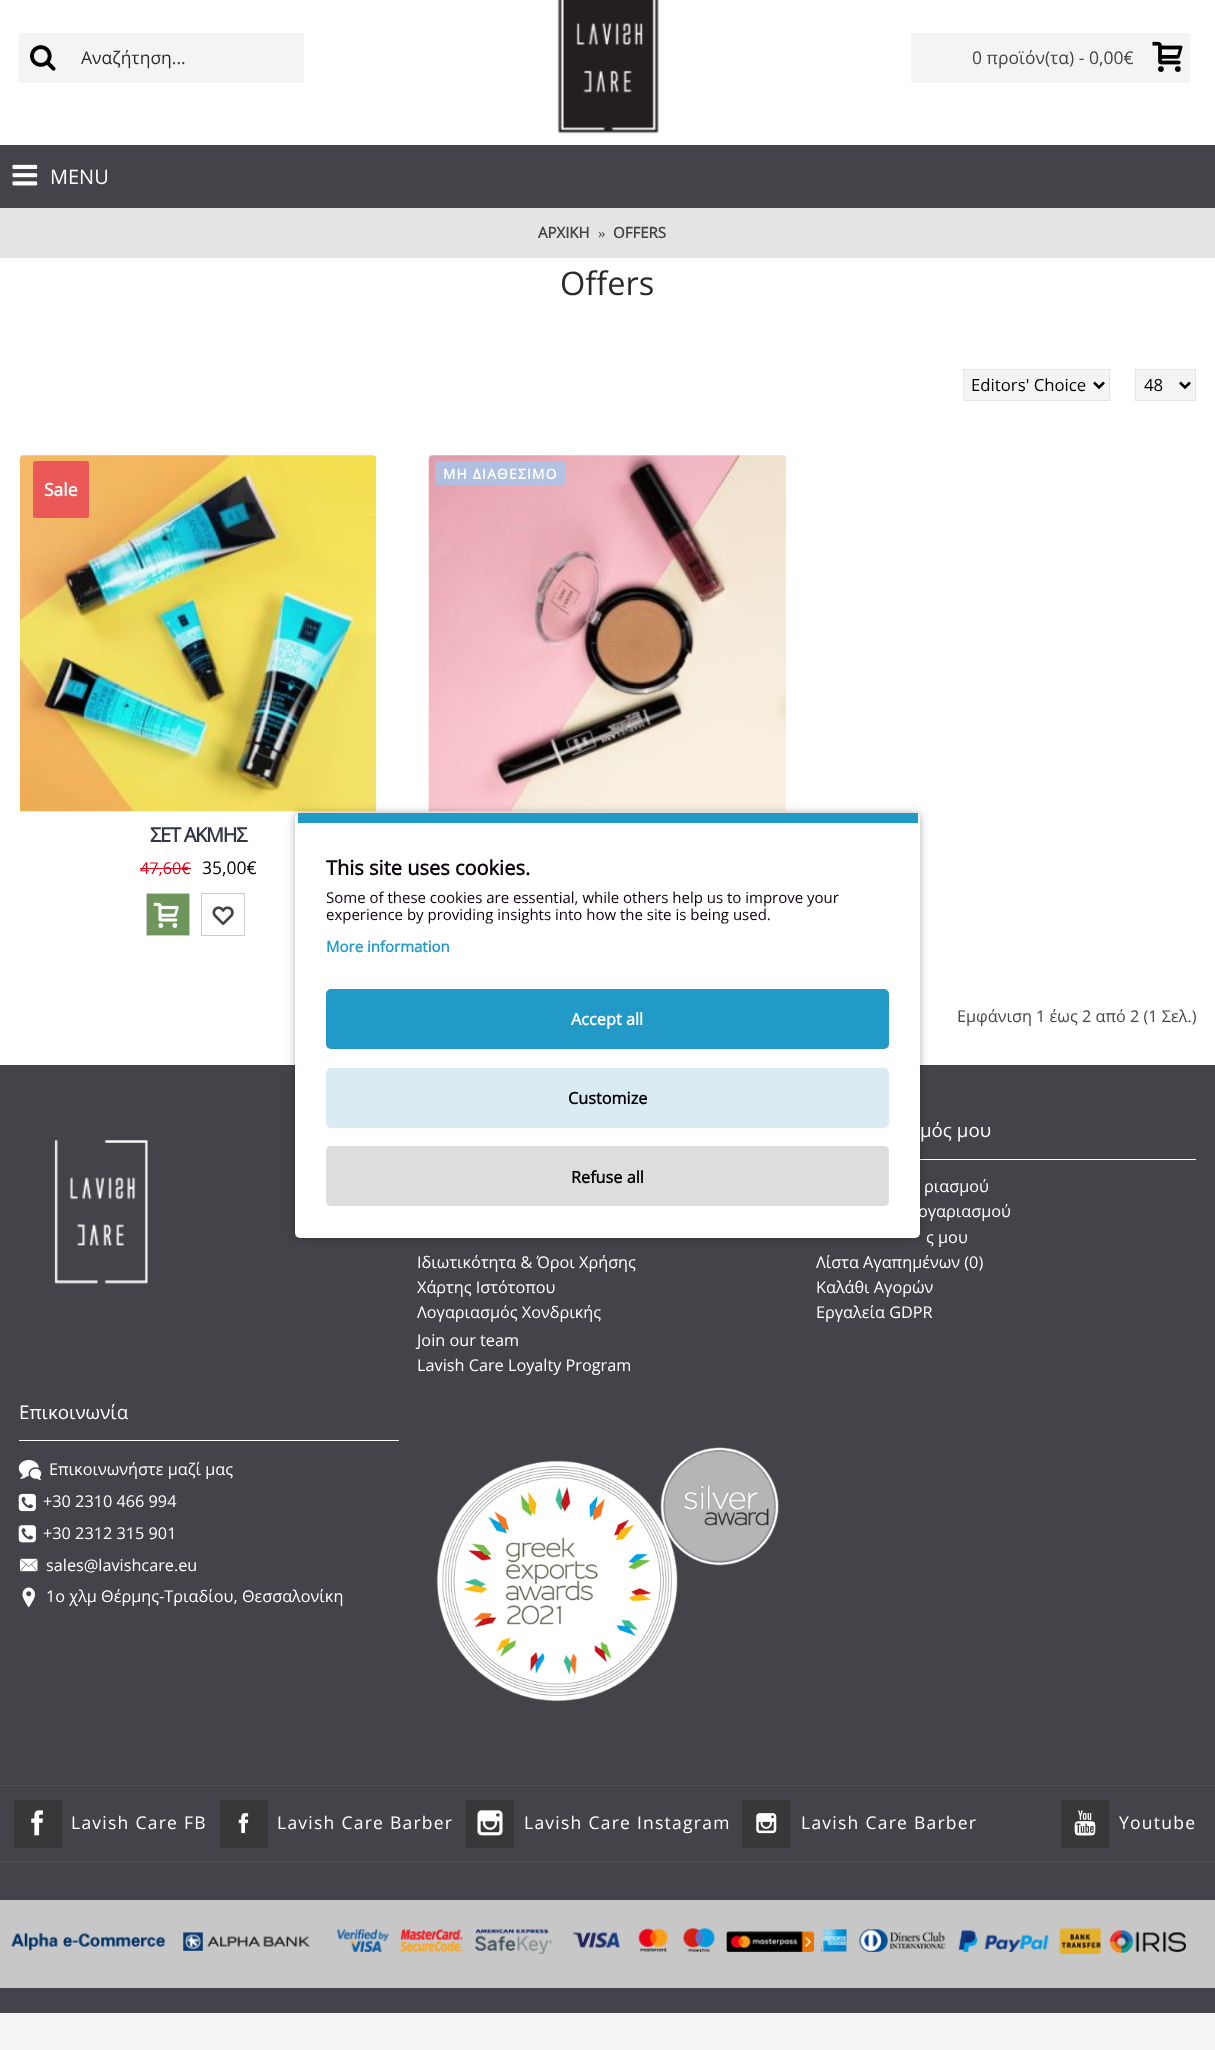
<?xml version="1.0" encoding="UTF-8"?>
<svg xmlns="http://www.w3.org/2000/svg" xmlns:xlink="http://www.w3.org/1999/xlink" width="1215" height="2050">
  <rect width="100%" height="100%" fill="#ffffff" />
  <rect x="19" y="33" width="285" height="50" fill="#f4f4f4" />
  <image x="30" y="45" width="26" height="26" xlink:href="image1.png" />
  <image x="557" y="0" width="102" height="134" xlink:href="image2.png" />
  <rect x="911" y="33" width="279" height="50" fill="#f4f4f4" />
  <image x="1152" y="41" width="31" height="31" xlink:href="image3.png" />
  <rect y="145" width="1215" height="63" fill="#444349" />
  <image x="12" y="164" width="26" height="22" xlink:href="image4.png" />
  <rect y="208" width="1215" height="50" fill="#e4e4e4" />
  <rect x="963.5" y="369.5" width="146" height="31" fill="#f4f4f4" stroke="#e4e4e4" />
  <path d="M 1094 382.5 l 5 5 l 5 -5" fill="none" stroke="#000000" stroke-width="2.5" />
  <rect x="1135.5" y="369.5" width="60" height="31" fill="#f4f4f4" stroke="#e4e4e4" />
  <path d="M 1180 382.5 l 5 5 l 5 -5" fill="none" stroke="#000000" stroke-width="2.5" />
  <image x="428" y="455" width="359" height="357" xlink:href="image5.png" />
  <rect x="435" y="461" width="130" height="24" fill="#9acbf5" fill-opacity="0.7" />
  <image x="20" y="455" width="357" height="357" xlink:href="image6.png" />
  <rect x="33" y="461" width="56" height="57" rx="2.5" fill="#eb5858" />
  <rect x="140" y="868" width="51" height="1" fill="#dd0017" />
  <rect x="146.5" y="893.5" width="43" height="42" fill="#6e965a" stroke="#cbcbcb" />
  <image x="153" y="902" width="26" height="26" xlink:href="image7.png" />
  <rect x="201.5" y="893.5" width="43" height="42" fill="none" stroke="#cbcbcb" />
  <image x="212" y="906" width="22" height="19" xlink:href="image8.png" />
  <rect y="1065" width="1215" height="948" fill="#444349" />
  <rect x="920" y="1159" width="276" height="1" fill="#ffffff" />
  <rect x="295" y="813" width="625" height="425" rx="5" fill="#000000" fill-opacity="0.3" filter="blur(4.5px)" />
  <rect x="295" y="813" width="625" height="425" rx="5" fill="#ffffff" />
  <rect x="298" y="813" width="620" height="10" fill="#229ac8" />
  <rect x="326" y="989" width="563" height="60" rx="5" fill="#229ac8" />
  <rect x="326" y="1068" width="563" height="60" rx="5" fill="#daebf3" />
  <rect x="326" y="1146" width="563" height="60" rx="5" fill="#dddddd" />
  <image x="54" y="1140" width="94" height="145" xlink:href="image9.png" />
  <rect x="19" y="1440" width="380" height="1" fill="#ffffff" />
  <image x="18" y="1460" width="24" height="20" xlink:href="image10.png" />
  <image x="18" y="1493" width="18" height="19" xlink:href="image11.png" />
  <image x="18" y="1525" width="18" height="18" xlink:href="image12.png" />
  <image x="20" y="1558" width="18" height="14" xlink:href="image13.png" />
  <image x="22" y="1587" width="13" height="21" xlink:href="image14.png" />
  <image x="436" y="1447" width="343" height="255" xlink:href="image15.png" />
  <rect y="1785" width="1215" height="1" fill="#505050" />
  <rect y="1861" width="1215" height="1" fill="#505050" />
  <rect x="13.5" y="1799.5" width="49" height="49" rx="0.5" fill="#383838" stroke="#444349" />
  <image x="31" y="1810" width="12" height="26" xlink:href="image16.png" />
  <rect x="219.5" y="1799.5" width="49" height="49" rx="0.5" fill="#383838" stroke="#444349" />
  <image x="238" y="1813" width="11" height="21" xlink:href="image17.png" />
  <rect x="465.5" y="1799.5" width="49" height="49" rx="0.5" fill="#383838" stroke="#444349" />
  <image x="477" y="1810" width="26" height="26" xlink:href="image18.png" />
  <rect x="741.5" y="1799.5" width="49" height="49" rx="0.5" fill="#383838" stroke="#444349" />
  <image x="756" y="1813" width="21" height="21" xlink:href="image19.png" />
  <rect x="1060.5" y="1799.5" width="49" height="49" rx="0.5" fill="#383838" stroke="#444349" />
  <image x="1074" y="1810" width="22" height="26" xlink:href="image20.png" />
  <rect y="1900" width="1215" height="88" fill="#c7c7c8" />
  <image x="11" y="1928" width="1175" height="26" xlink:href="image21.png" />
  <rect y="2013" width="1215" height="37" fill="#f4f4f4" />
  <text x="81" y="64" style="font-family: Open Sans; font-size: 17.5px; fill: #2a2b2e">Αναζήτηση...</text>
  <text x="972" y="64" style="font-family: Open Sans; font-size: 17.5px; fill: #444349">0 προϊόν(τα) - 0,00€</text>
  <text x="50" y="184" style="font-family: Open Sans; font-size: 20px; fill: #ffffff">MENU</text>
  <text x="538" y="238" style="font-family: Open Sans; font-size: 15px; font-weight: bold; fill: #444349">ΑΡΧΙΚΗ</text>
  <text x="598" y="238" style="font-family: Liberation Serif; font-size: 15px; fill: #444349">»</text>
  <text x="613" y="238" style="font-family: Open Sans; font-size: 15px; font-weight: bold; fill: #444349">OFFERS</text>
  <text x="560" y="295" style="font-family: Open Sans; font-size: 32.5px; fill: #2a2b2e">Offers</text>
  <text x="971" y="391" style="font-family: Open Sans; font-size: 16.75px; fill: #000000">Editors' Choice</text>
  <text x="1144" y="391" style="font-family: Open Sans; font-size: 16.75px; fill: #000000">48</text>
  <text x="443" y="479" style="font-family: Open Sans; font-size: 13.75px; font-weight: bold; letter-spacing: 1.25px; fill: #ffffff">ΜΗ ΔΙΑΘΕΣΙΜΟ</text>
  <text x="44" y="496" style="font-family: Open Sans; font-size: 17.5px; font-weight: bold; fill: #ffffff">Sale</text>
  <text x="150" y="842" style="font-family: Open Sans; font-size: 20px; font-weight: bold; letter-spacing: -1.25px; fill: #333745">ΣΕΤ ΑΚΜΗΣ</text>
  <text x="140" y="874" style="font-family: Open Sans; font-size: 16.25px; fill: #dd0017">47,60€</text>
  <text x="202" y="874" style="font-family: Open Sans; font-size: 17.5px; fill: #000000">35,00€</text>
  <text x="957" y="1022" style="font-family: Open Sans; font-size: 16.25px; fill: #444349">Εμφάνιση 1 έως 2 από 2 (1 Σελ.)</text>
  <text x="326" y="875" style="font-family: Open Sans; font-size: 20px; font-weight: bold; fill: #0a010a">This site uses cookies.</text>
  <text x="326" y="903" style="font-family: Open Sans; font-size: 15px; fill: #0a010a">Some of these cookies are essential, while others help us to improve your</text>
  <text x="326" y="920" style="font-family: Open Sans; font-size: 15px; fill: #0a010a">experience by providing insights into how the site is being used.</text>
  <text x="326" y="952" style="font-family: Open Sans; font-size: 15px; font-weight: bold; fill: #229ac8">More information</text>
  <text x="571" y="1025" style="font-family: Open Sans; font-size: 16.25px; font-weight: bold; fill: #ffffff">Accept all</text>
  <text x="568" y="1104" style="font-family: Open Sans; font-size: 16.25px; font-weight: bold; fill: #000000">Customize</text>
  <text x="571" y="1183" style="font-family: Open Sans; font-size: 16.25px; font-weight: bold; fill: #000000">Refuse all</text>
  <text x="920" y="1137" style="font-family: Open Sans; font-size: 18.75px; fill: #ffffff">μός μου</text>
  <text x="924" y="1192" style="font-family: Open Sans; font-size: 16.25px; fill: #ffffff">ριασμού</text>
  <text x="918" y="1217" style="font-family: Open Sans; font-size: 16.25px; fill: #ffffff">ογαριασμού</text>
  <text x="926" y="1243" style="font-family: Open Sans; font-size: 16.25px; fill: #ffffff">ς μου</text>
  <text x="816" y="1268" style="font-family: Open Sans; font-size: 16.25px; fill: #ffffff">Λίστα Αγαπημένων (0)</text>
  <text x="816" y="1293" style="font-family: Open Sans; font-size: 16.25px; fill: #ffffff">Καλάθι Αγορών</text>
  <text x="816" y="1318" style="font-family: Open Sans; font-size: 16.25px; fill: #ffffff">Εργαλεία GDPR</text>
  <text x="417" y="1268" style="font-family: Open Sans; font-size: 16.25px; fill: #ffffff">Ιδιωτικότητα &amp; Όροι Χρήσης</text>
  <text x="417" y="1293" style="font-family: Open Sans; font-size: 16.25px; fill: #ffffff">Χάρτης Ιστότοπου</text>
  <text x="417" y="1318" style="font-family: Open Sans; font-size: 16.25px; fill: #ffffff">Λογαριασμός Χονδρικής</text>
  <text x="417" y="1346" style="font-family: Open Sans; font-size: 16.25px; fill: #ffffff">Join our team</text>
  <text x="417" y="1371" style="font-family: Open Sans; font-size: 16.25px; fill: #ffffff">Lavish Care Loyalty Program</text>
  <text x="19" y="1419" style="font-family: Open Sans; font-size: 18.75px; fill: #ffffff">Επικοινωνία</text>
  <text x="49" y="1475" style="font-family: Open Sans; font-size: 16.25px; fill: #ffffff">Επικοινωνήστε μαζί μας</text>
  <text x="43" y="1507" style="font-family: Open Sans; font-size: 16.25px; fill: #ffffff">+30 2310 466 994</text>
  <text x="43" y="1539" style="font-family: Open Sans; font-size: 16.25px; fill: #ffffff">+30 2312 315 901</text>
  <text x="46" y="1571" style="font-family: Open Sans; font-size: 16.25px; fill: #ffffff">sales@lavishcare.eu</text>
  <text x="46" y="1602" style="font-family: Open Sans; font-size: 16.25px; fill: #ffffff">1o χλμ Θέρμης-Τριαδίου, Θεσσαλονίκη</text>
  <text x="71" y="1829" style="font-family: Open Sans; font-size: 17.5px; letter-spacing: 1.25px; fill: #ffffff">Lavish Care FB</text>
  <text x="277" y="1829" style="font-family: Open Sans; font-size: 17.5px; letter-spacing: 1.25px; fill: #ffffff">Lavish Care Barber</text>
  <text x="524" y="1829" style="font-family: Open Sans; font-size: 17.5px; letter-spacing: 1.25px; fill: #ffffff">Lavish Care Instagram</text>
  <text x="801" y="1829" style="font-family: Open Sans; font-size: 17.5px; letter-spacing: 1.25px; fill: #ffffff">Lavish Care Barber</text>
  <text x="1119" y="1829" style="font-family: Open Sans; font-size: 17.5px; letter-spacing: 1.25px; fill: #ffffff">Youtube</text>
</svg>
